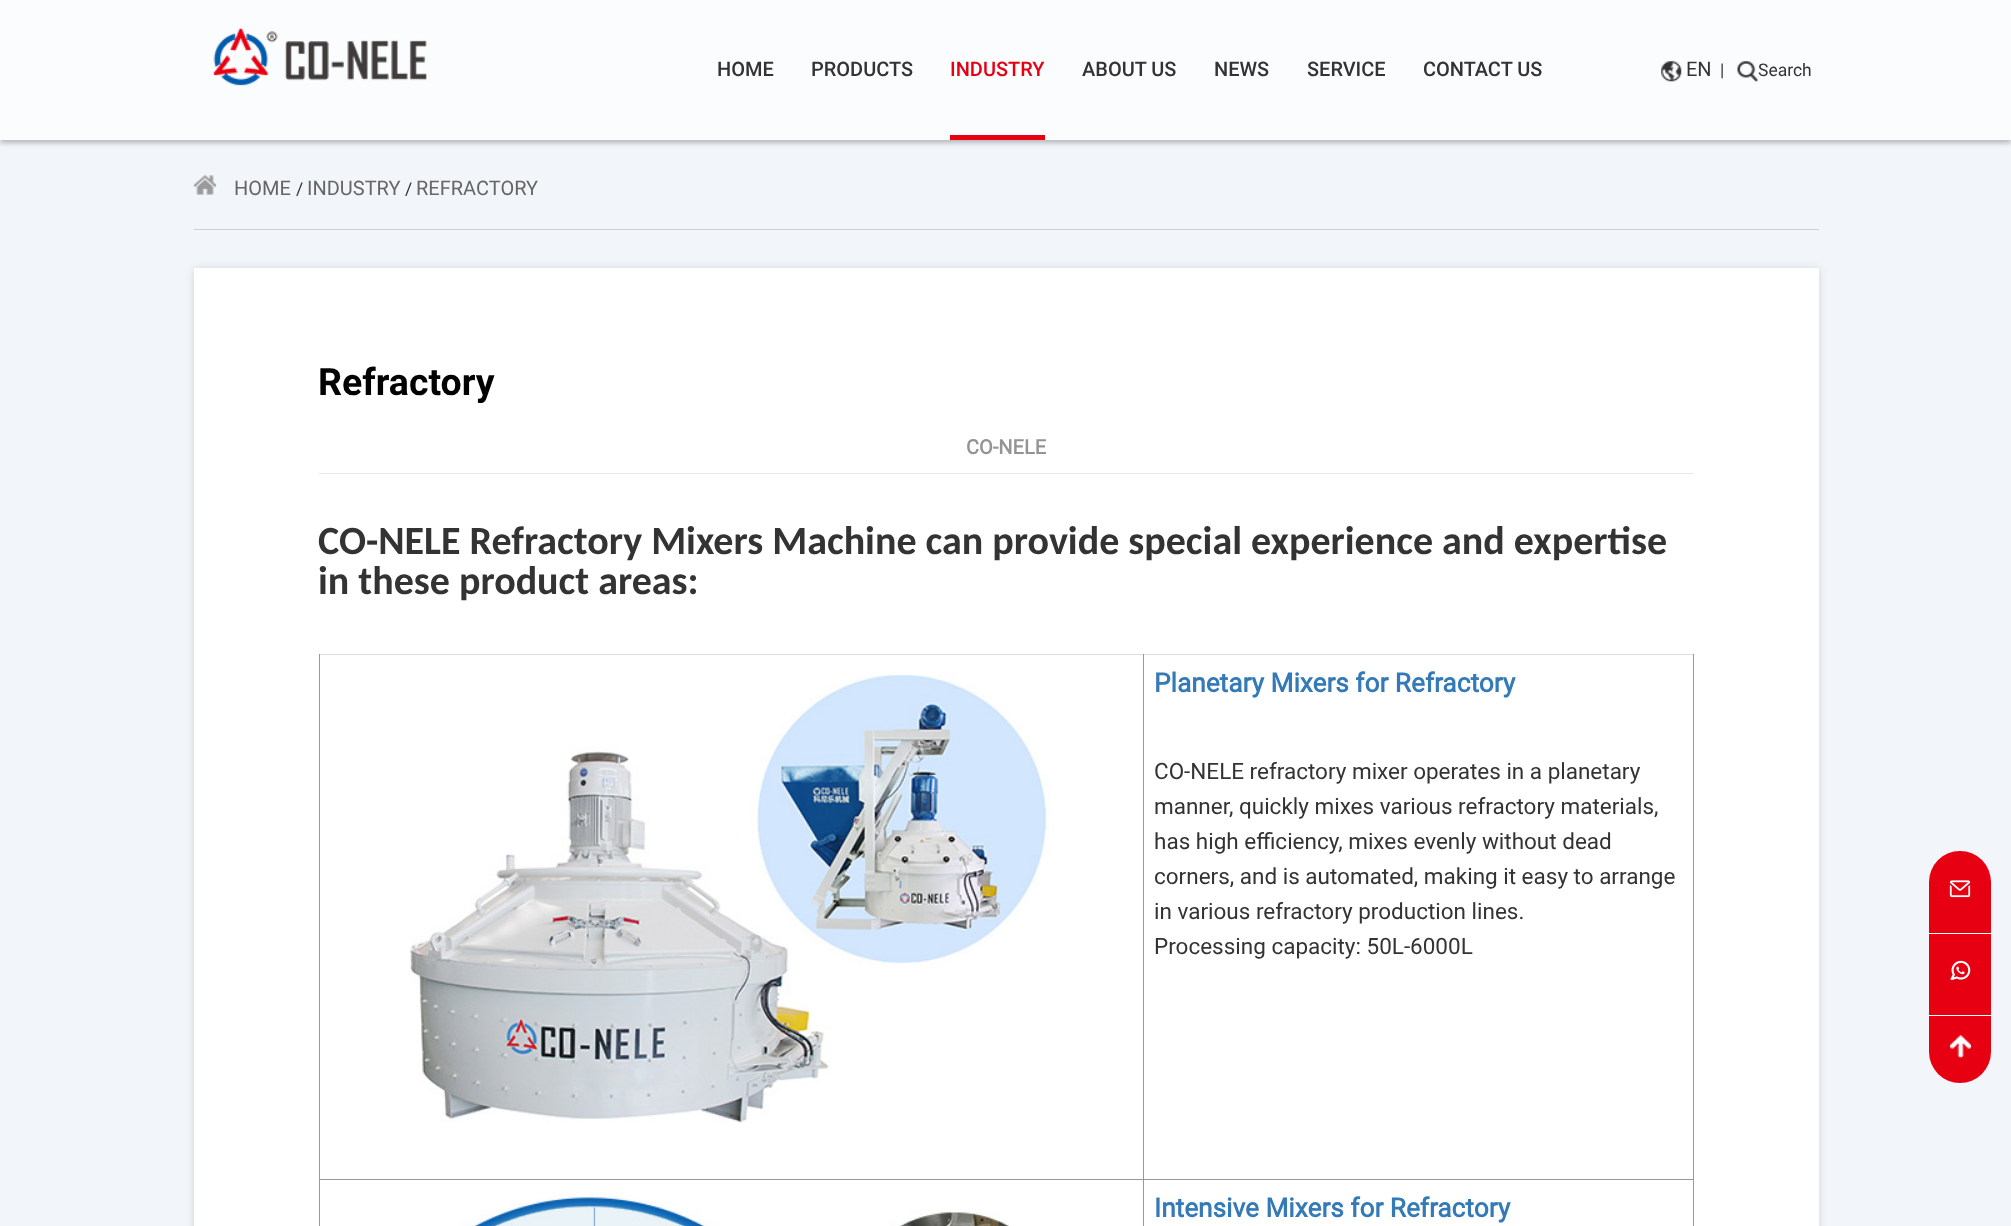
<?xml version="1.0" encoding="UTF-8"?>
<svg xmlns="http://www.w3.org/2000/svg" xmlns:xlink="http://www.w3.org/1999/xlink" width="2011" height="1226">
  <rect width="100%" height="100%" fill="#f2f5fa" />
  <rect y="3" width="2011" height="140" fill="#000000" fill-opacity="0.25" filter="blur(2.5px)" />
  <rect width="2011" height="140" fill="#fbfcfd" />
  <image x="213" y="28" width="214" height="58" xlink:href="image1.png" />
  <rect x="950" y="135" width="95" height="5" fill="#e60012" />
  <image x="1661" y="61" width="21" height="21" xlink:href="image2.png" />
  <image x="1737" y="61" width="21" height="21" xlink:href="image3.png" />
  <rect x="194" y="229" width="1625" height="1" fill="#ced0d5" />
  <image x="193" y="175" width="24" height="20" xlink:href="image4.png" />
  <rect x="194" y="269" width="1625" height="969" fill="#000000" fill-opacity="0.14" filter="blur(4px)" />
  <rect x="194" y="268" width="1625" height="958" fill="#ffffff" />
  <rect x="319" y="473" width="1375" height="1" fill="#e8e8e8" />
  <rect x="319" y="654" width="1375" height="1" fill="#dddddd" />
  <rect x="1693" y="1179" width="1" height="47" fill="#999999" />
  <rect x="1693" y="654" width="1" height="526" fill="#999999" />
  <rect x="1143" y="1179" width="1" height="47" fill="#999999" />
  <rect x="1143" y="1179" width="551" height="1" fill="#999999" />
  <rect x="1143" y="654" width="1" height="526" fill="#999999" />
  <rect x="319" y="1179" width="1" height="47" fill="#999999" />
  <rect x="319" y="1179" width="825" height="1" fill="#999999" />
  <rect x="319" y="654" width="1" height="526" fill="#999999" />
  <image x="410" y="675" width="640" height="448" xlink:href="image5.png" />
  <image x="460" y="1190" width="549" height="36" xlink:href="image6.png" />
  <rect x="1929" y="851" width="62" height="232" rx="31" fill="#e60012" />
  <rect x="1929" y="933" width="62" height="1" fill="#ffffff" />
  <image x="1949" y="880" width="22" height="18" xlink:href="image7.png" />
  <rect x="1929" y="1015" width="62" height="1" fill="#ffffff" />
  <image x="1950" y="960" width="21" height="20" xlink:href="image8.png" />
  <image x="1950" y="1035" width="22" height="23" xlink:href="image9.png" />
  <text x="717" y="76" style="font-family: Roboto; font-size: 20px; font-weight: 500; fill: #333333">HOME</text>
  <text x="811" y="76" style="font-family: Roboto; font-size: 20px; font-weight: 500; fill: #333333">PRODUCTS</text>
  <text x="950" y="76" style="font-family: Roboto; font-size: 20px; font-weight: 500; fill: #e60012">INDUSTRY</text>
  <text x="1082" y="76" style="font-family: Roboto; font-size: 20px; font-weight: 500; fill: #333333">ABOUT US</text>
  <text x="1214" y="76" style="font-family: Roboto; font-size: 20px; font-weight: 500; fill: #333333">NEWS</text>
  <text x="1307" y="76" style="font-family: Roboto; font-size: 20px; font-weight: 500; fill: #333333">SERVICE</text>
  <text x="1423" y="76" style="font-family: Roboto; font-size: 20px; font-weight: 500; fill: #333333">CONTACT US</text>
  <text x="1686" y="76" style="font-family: Roboto; font-size: 20px; fill: #333333">EN</text>
  <text x="1720" y="76" style="font-family: Roboto; font-size: 17.5px; fill: #333333">|</text>
  <text x="1758" y="76" style="font-family: Roboto; font-size: 17.5px; fill: #333333">Search</text>
  <text x="234" y="195" style="font-family: Roboto; font-size: 20px; fill: #666666">HOME</text>
  <text x="296" y="195" style="font-family: Roboto; font-size: 17.5px; fill: #333333">/</text>
  <text x="307" y="195" style="font-family: Roboto; font-size: 20px; fill: #666666">INDUSTRY</text>
  <text x="405" y="195" style="font-family: Roboto; font-size: 17.5px; fill: #333333">/</text>
  <text x="416" y="195" style="font-family: Roboto; font-size: 20px; fill: #666666">REFRACTORY</text>
  <text x="318" y="395" style="font-family: Roboto; font-size: 37.5px; font-weight: bold; fill: #000000">Refractory</text>
  <text x="966" y="454" style="font-family: 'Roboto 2'; font-size: 20px; font-weight: bold; fill: #949494">CO-NELE</text>
  <text x="318" y="554" style="font-family: Carlito; font-size: 40px; font-weight: bold; fill: #333333">CO-NELE Refractory Mixers Machine can provide special experience and expertise</text>
  <text x="318" y="594" style="font-family: Carlito; font-size: 40px; font-weight: bold; fill: #333333">in these product areas:</text>
  <text x="1154" y="692" style="font-family: 'Roboto 2'; font-size: 26.25px; font-weight: bold; fill: #337ab7">Planetary Mixers for Refractory</text>
  <text x="1154" y="779" style="font-family: Roboto; font-size: 22.5px; fill: #333333">CO-NELE refractory mixer operates in a planetary</text>
  <text x="1154" y="814" style="font-family: Roboto; font-size: 22.5px; fill: #333333">manner, quickly mixes various refractory materials,</text>
  <text x="1154" y="849" style="font-family: Roboto; font-size: 22.5px; fill: #333333">has high efficiency, mixes evenly without dead</text>
  <text x="1154" y="884" style="font-family: Roboto; font-size: 22.5px; fill: #333333">corners, and is automated, making it easy to arrange</text>
  <text x="1154" y="919" style="font-family: Roboto; font-size: 22.5px; fill: #333333">in various refractory production lines.</text>
  <text x="1154" y="954" style="font-family: Roboto; font-size: 22.5px; fill: #333333">Processing capacity: 50L-6000L</text>
  <text x="1154" y="1217" style="font-family: 'Roboto 2'; font-size: 26.25px; font-weight: bold; fill: #337ab7">Intensive Mixers for Refractory</text>
</svg>
